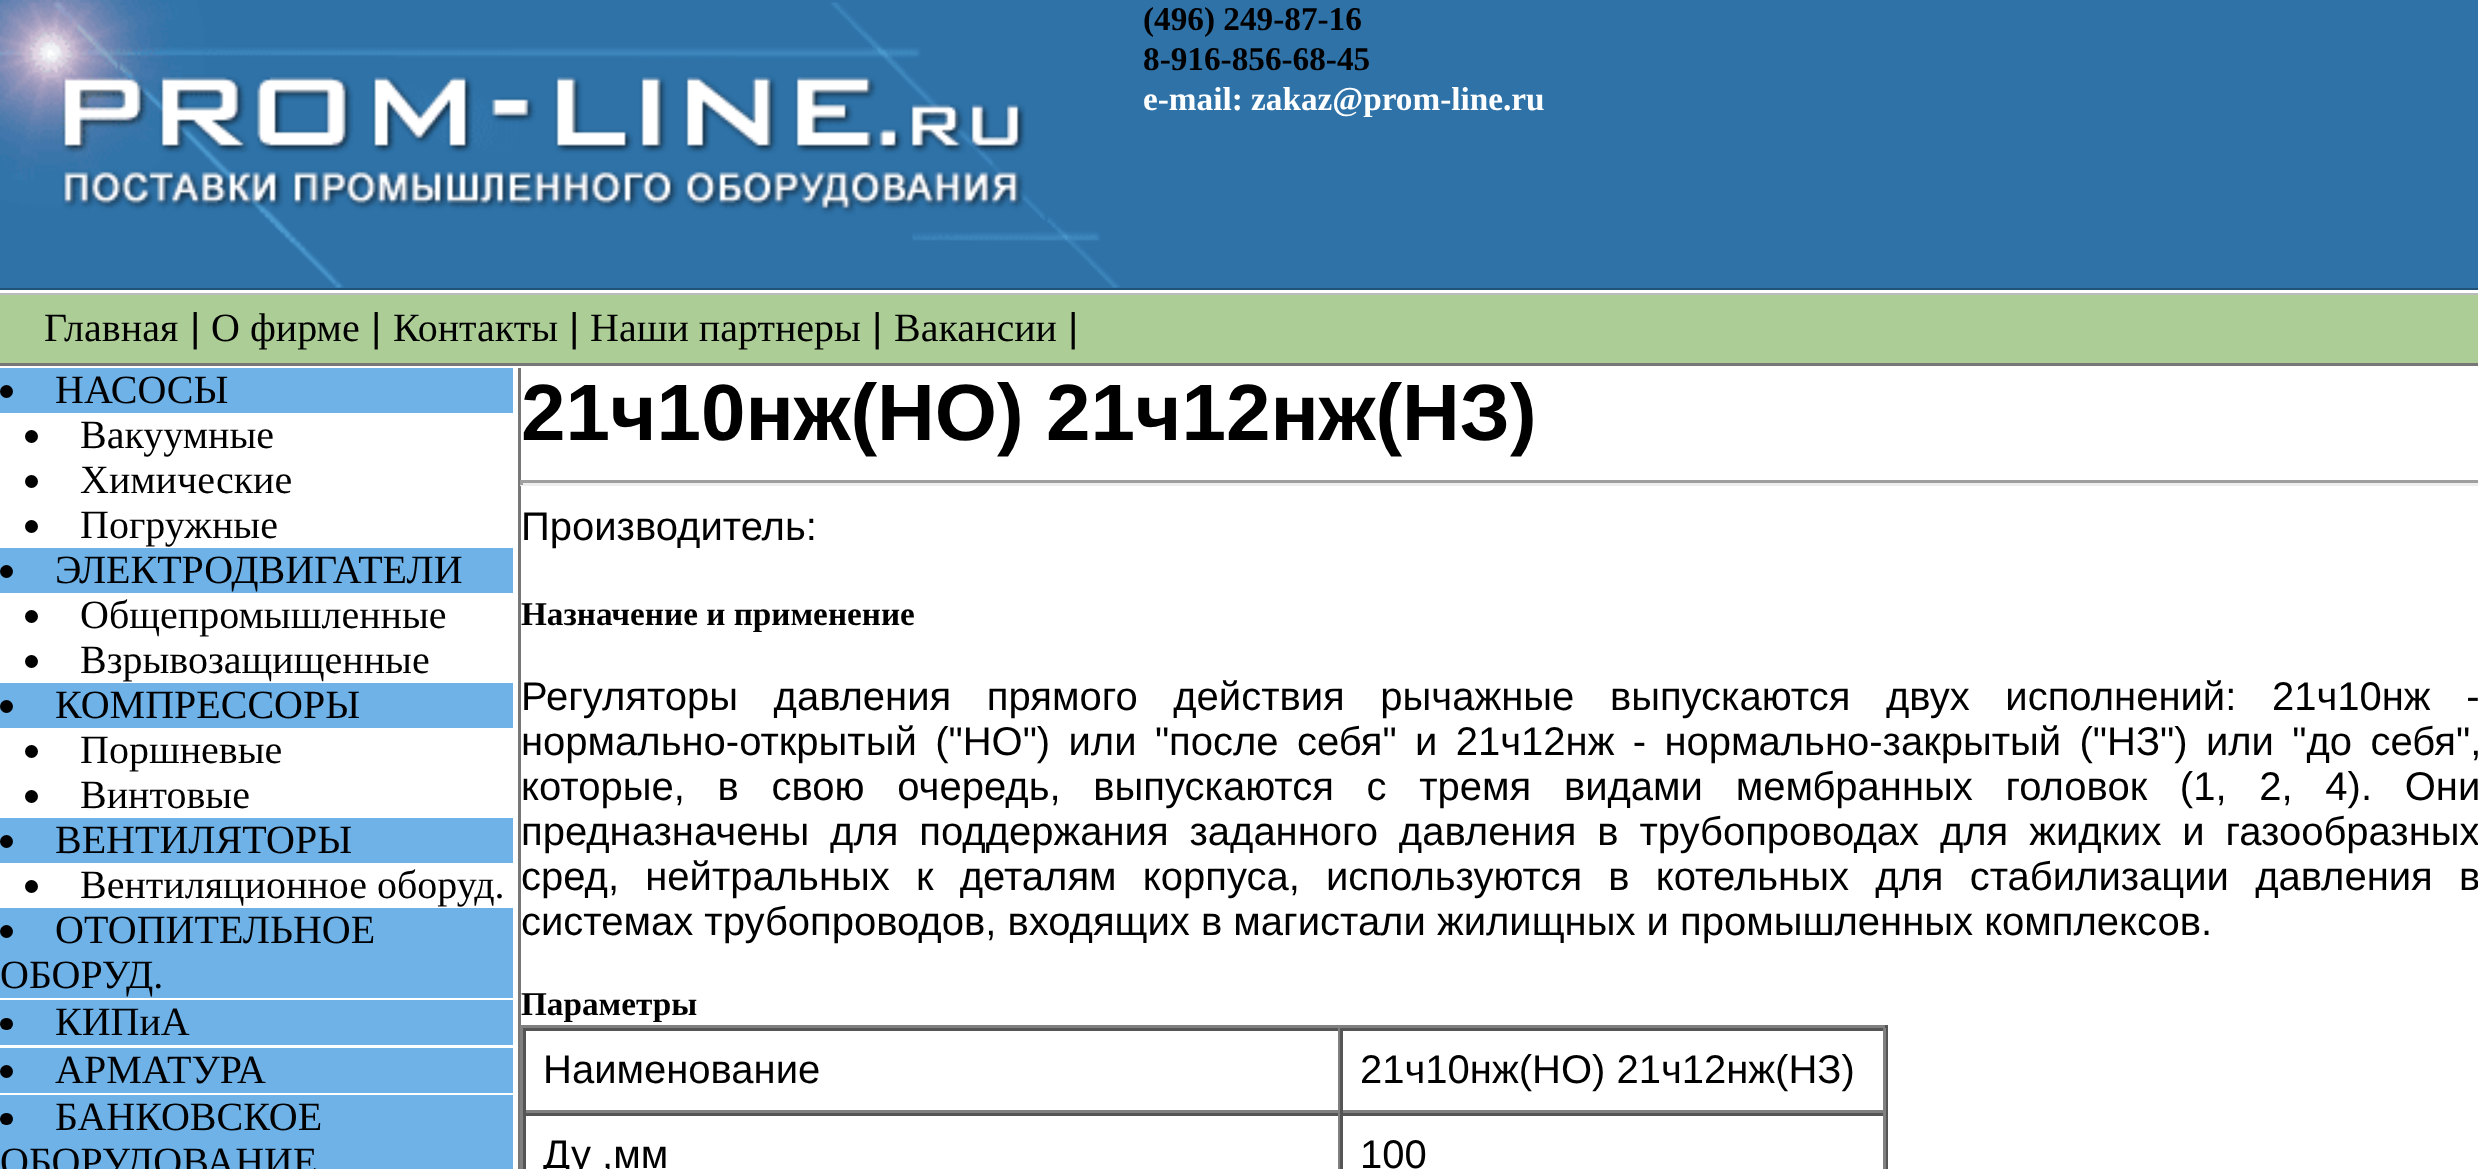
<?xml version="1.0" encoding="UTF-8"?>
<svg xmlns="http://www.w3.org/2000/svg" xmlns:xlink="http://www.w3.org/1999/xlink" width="2478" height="1169">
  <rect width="100%" height="100%" fill="#ffffff" />
  <rect width="2478" height="288" fill="#2e72a8" />
  <image x="0" y="0" width="1120" height="288" xlink:href="image1.png" />
  <rect y="288" width="2478" height="2" fill="#215279" />
  <rect y="293" width="2478" height="2" fill="#bbbbbb" />
  <rect y="295" width="2478" height="68" fill="#adcd97" />
  <rect y="363" width="2478" height="3" fill="#777777" />
  <rect x="518" y="368" width="3" height="801" fill="#777777" />
  <rect y="368" width="513" height="45" fill="#6eb2e8" />
  <circle cx="6.5" cy="391.5" r="6.5" fill="#000000" />
  <circle cx="31.5" cy="436.5" r="6.5" fill="#000000" />
  <circle cx="31.5" cy="481.5" r="6.5" fill="#000000" />
  <circle cx="31.5" cy="526.5" r="6.5" fill="#000000" />
  <rect y="548" width="513" height="45" fill="#6eb2e8" />
  <circle cx="6.5" cy="571.5" r="6.5" fill="#000000" />
  <circle cx="31.5" cy="616.5" r="6.5" fill="#000000" />
  <circle cx="31.5" cy="661.5" r="6.5" fill="#000000" />
  <rect y="683" width="513" height="45" fill="#6eb2e8" />
  <circle cx="6.5" cy="706.5" r="6.5" fill="#000000" />
  <circle cx="31.5" cy="751.5" r="6.5" fill="#000000" />
  <circle cx="31.5" cy="796.5" r="6.5" fill="#000000" />
  <rect y="818" width="513" height="45" fill="#6eb2e8" />
  <circle cx="6.5" cy="841.5" r="6.5" fill="#000000" />
  <circle cx="31.5" cy="886.5" r="6.5" fill="#000000" />
  <rect y="908" width="513" height="90" fill="#6eb2e8" />
  <circle cx="6.5" cy="931.5" r="6.5" fill="#000000" />
  <rect y="1000" width="513" height="45" fill="#6eb2e8" />
  <rect y="1018" width="13" height="12" rx="6" fill="#000000" />
  <rect y="1048" width="513" height="45" fill="#6eb2e8" />
  <circle cx="6.5" cy="1071.5" r="6.5" fill="#000000" />
  <rect y="1095" width="513" height="74" fill="#6eb2e8" />
  <rect y="1113" width="13" height="12" rx="6" fill="#000000" />
  <rect x="520" y="480" width="1958" height="3" fill="#9f9f9f" />
  <rect x="520" y="483" width="1958" height="3" fill="#eeeeee" />
  <rect x="520" y="480" width="3" height="5" fill="#9f9f9f" />
  <rect x="520" y="1025" width="1368" height="3" fill="#808080" />
  <rect x="1885" y="1025" width="3" height="144" fill="#555555" />
  <rect x="520" y="1025" width="3" height="144" fill="#808080" />
  <rect x="523" y="1028" width="1362" height="3" fill="#555555" />
  <rect x="1338" y="1028" width="2" height="85" fill="#808080" />
  <rect x="523" y="1110" width="817" height="3" fill="#808080" />
  <rect x="523" y="1028" width="3" height="85" fill="#555555" />
  <rect x="1883" y="1028" width="3" height="85" fill="#808080" />
  <rect x="1340" y="1110" width="545" height="3" fill="#808080" />
  <rect x="1340" y="1028" width="3" height="85" fill="#555555" />
  <rect x="523" y="1113" width="1362" height="3" fill="#555555" />
  <rect x="1338" y="1113" width="2" height="56" fill="#808080" />
  <rect x="523" y="1113" width="3" height="56" fill="#555555" />
  <rect x="1883" y="1113" width="3" height="56" fill="#808080" />
  <rect x="1340" y="1113" width="3" height="56" fill="#555555" />
  <text x="1143" y="30" style="font-family: Liberation Serif; font-size: 33.25px; font-weight: bold; fill: #000000">(496) 249-87-16</text>
  <text x="1143" y="70" style="font-family: Liberation Serif; font-size: 33.25px; font-weight: bold; fill: #000000">8-916-856-68-45</text>
  <text x="1143" y="110" style="font-family: Liberation Serif; font-size: 33.25px; font-weight: bold; fill: #ffffff">e-mail: zakaz@prom-line.ru</text>
  <text x="44" y="341" style="font-family: Liberation Serif; font-size: 40px; fill: #000000">Главная</text>
  <text x="190" y="341" style="font-family: Liberation Sans; font-size: 40px; fill: #000000">|</text>
  <text x="211" y="341" style="font-family: Liberation Serif; font-size: 40px; fill: #000000">О фирме</text>
  <text x="371" y="341" style="font-family: Liberation Sans; font-size: 40px; fill: #000000">|</text>
  <text x="393" y="341" style="font-family: Liberation Serif; font-size: 40px; fill: #000000">Контакты</text>
  <text x="569" y="341" style="font-family: Liberation Sans; font-size: 40px; fill: #000000">|</text>
  <text x="590" y="341" style="font-family: Liberation Serif; font-size: 40px; fill: #000000">Наши партнеры</text>
  <text x="872" y="341" style="font-family: Liberation Sans; font-size: 40px; fill: #000000">|</text>
  <text x="894" y="341" style="font-family: Liberation Serif; font-size: 40px; fill: #000000">Вакансии</text>
  <text x="1068" y="341" style="font-family: Liberation Sans; font-size: 40px; fill: #000000">|</text>
  <text x="55" y="403" style="font-family: Liberation Serif; font-size: 40px; fill: #000000">НАСОСЫ</text>
  <text x="80" y="448" style="font-family: Liberation Serif; font-size: 40px; fill: #000000">Вакуумные</text>
  <text x="80" y="493" style="font-family: Liberation Serif; font-size: 40px; fill: #000000">Химические</text>
  <text x="80" y="538" style="font-family: Liberation Serif; font-size: 40px; fill: #000000">Погружные</text>
  <text x="55" y="583" style="font-family: Liberation Serif; font-size: 40px; fill: #000000">ЭЛЕКТРОДВИГАТЕЛИ</text>
  <text x="80" y="628" style="font-family: Liberation Serif; font-size: 40px; fill: #000000">Общепромышленные</text>
  <text x="80" y="673" style="font-family: Liberation Serif; font-size: 40px; fill: #000000">Взрывозащищенные</text>
  <text x="55" y="718" style="font-family: Liberation Serif; font-size: 40px; fill: #000000">КОМПРЕССОРЫ</text>
  <text x="80" y="763" style="font-family: Liberation Serif; font-size: 40px; fill: #000000">Поршневые</text>
  <text x="80" y="808" style="font-family: Liberation Serif; font-size: 40px; fill: #000000">Винтовые</text>
  <text x="55" y="853" style="font-family: Liberation Serif; font-size: 40px; fill: #000000">ВЕНТИЛЯТОРЫ</text>
  <text x="80" y="898" style="font-family: Liberation Serif; font-size: 40px; fill: #000000">Вентиляционное оборуд.</text>
  <text x="55" y="943" style="font-family: Liberation Serif; font-size: 40px; fill: #000000">ОТОПИТЕЛЬНОЕ</text>
  <text x="0" y="988" style="font-family: Liberation Serif; font-size: 40px; fill: #000000">ОБОРУД.</text>
  <text x="55" y="1035" style="font-family: Liberation Serif; font-size: 40px; fill: #000000">КИПиА</text>
  <text x="55" y="1083" style="font-family: Liberation Serif; font-size: 40px; fill: #000000">АРМАТУРА</text>
  <text x="55" y="1130" style="font-family: Liberation Serif; font-size: 40px; fill: #000000">БАНКОВСКОЕ</text>
  <text x="0" y="1175" style="font-family: Liberation Serif; font-size: 40px; fill: #000000">ОБОРУДОВАНИЕ</text>
  <text x="521" y="440" style="font-family: Liberation Sans; font-size: 80px; font-weight: bold; fill: #000000">21ч10нж(НО) 21ч12нж(НЗ)</text>
  <text x="521" y="540" style="font-family: Liberation Sans; font-size: 40px; fill: #000000">Производитель:</text>
  <text x="521" y="625" style="font-family: Liberation Serif; font-size: 33.25px; font-weight: bold; fill: #000000">Назначение и применение</text>
  <text x="521" y="710" word-spacing="24.5" style="font-family: Liberation Sans; font-size: 40px; fill: #000000">Регуляторы давления прямого действия рычажные выпускаются двух исполнений: 21ч10нж -</text>
  <text x="521" y="755" word-spacing="7.25" style="font-family: Liberation Sans; font-size: 40px; fill: #000000">нормально-открытый ("НО") или "после себя" и 21ч12нж - нормально-закрытый ("НЗ") или "до себя",</text>
  <text x="521" y="800" word-spacing="21.6" style="font-family: Liberation Sans; font-size: 40px; fill: #000000">которые, в свою очередь, выпускаются с тремя видами мембранных головок (1, 2, 4). Они</text>
  <text x="521" y="845" word-spacing="9.75" style="font-family: Liberation Sans; font-size: 40px; fill: #000000">предназначены для поддержания заданного давления в трубопроводах для жидких и газообразных</text>
  <text x="521" y="890" word-spacing="15.1" style="font-family: Liberation Sans; font-size: 40px; fill: #000000">сред, нейтральных к деталям корпуса, используются в котельных для стабилизации давления в</text>
  <text x="521" y="935" style="font-family: Liberation Sans; font-size: 40px; fill: #000000">системах трубопроводов, входящих в магистали жилищных и промышленных комплексов.</text>
  <text x="521" y="1015" style="font-family: Liberation Serif; font-size: 33.25px; font-weight: bold; fill: #000000">Параметры</text>
  <text x="543" y="1083" style="font-family: Liberation Sans; font-size: 40px; fill: #000000">Наименование</text>
  <text x="1360" y="1083" style="font-family: Liberation Sans; font-size: 40px; fill: #000000">21ч10нж(НО) 21ч12нж(НЗ)</text>
  <text x="543" y="1168" style="font-family: Liberation Sans; font-size: 40px; fill: #000000">Ду ,мм</text>
  <text x="1360" y="1168" style="font-family: Liberation Sans; font-size: 40px; fill: #000000">100</text>
</svg>
